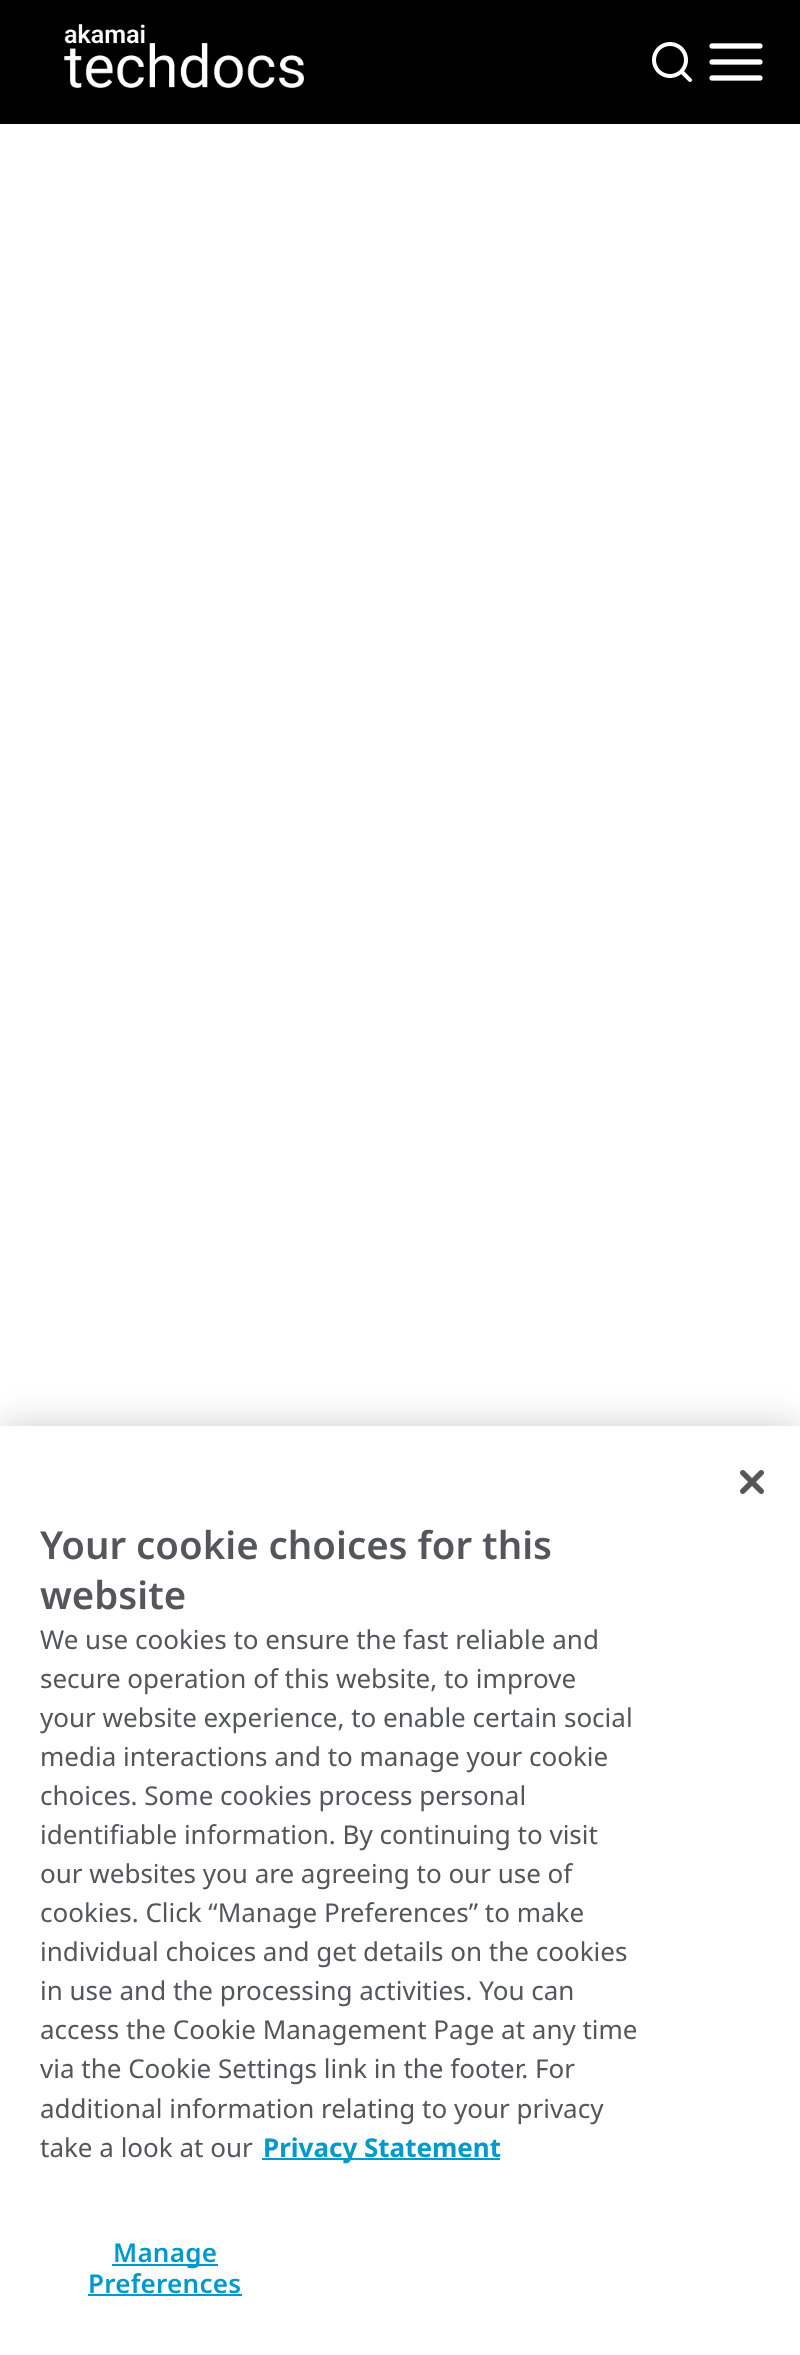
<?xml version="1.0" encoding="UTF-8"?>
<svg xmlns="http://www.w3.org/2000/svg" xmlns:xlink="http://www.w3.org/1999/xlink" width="800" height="2355">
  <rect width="100%" height="100%" fill="#ffffff" />
  <rect width="800" height="124" fill="#000000" />
  <image x="64" y="24" width="240" height="64" xlink:href="image1.png" />
  <image x="652" y="42" width="40" height="40" xlink:href="image2.png" />
  <image x="709" y="43" width="54" height="38" xlink:href="image3.png" />
  <rect y="1426" width="800" height="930" fill="#000000" fill-opacity="0.2" filter="blur(18px)" />
  <rect y="1426" width="800" height="929" fill="#ffffff" />
  <image x="740" y="1470" width="24" height="24" xlink:href="image4.png" />
  <rect x="262" y="2158" width="238" height="2" fill="#0099cc" />
  <rect x="112" y="2264" width="106" height="2" fill="#0099cc" />
  <rect x="88" y="2294" width="154" height="2" fill="#0099cc" />
  <text x="40" y="1559" style="font-family: Noto Sans; font-size: 38.4px; font-weight: 600; fill: #54565b">Your cookie choices for this</text>
  <text x="40" y="1609" style="font-family: Noto Sans; font-size: 38.4px; font-weight: 600; fill: #54565b">website</text>
  <text x="40" y="1649" style="font-family: Noto Sans; font-size: 26px; fill: #54565b">We use cookies to ensure the fast reliable and</text>
  <text x="40" y="1688" style="font-family: Noto Sans; font-size: 26px; fill: #54565b">secure operation of this website, to improve</text>
  <text x="40" y="1727" style="font-family: Noto Sans; font-size: 26px; fill: #54565b">your website experience, to enable certain social</text>
  <text x="40" y="1766" style="font-family: Noto Sans; font-size: 26px; fill: #54565b">media interactions and to manage your cookie</text>
  <text x="40" y="1805" style="font-family: Noto Sans; font-size: 26px; fill: #54565b">choices. Some cookies process personal</text>
  <text x="40" y="1844" style="font-family: Noto Sans; font-size: 26px; fill: #54565b">identifiable information. By continuing to visit</text>
  <text x="40" y="1883" style="font-family: Noto Sans; font-size: 26px; fill: #54565b">our websites you are agreeing to our use of</text>
  <text x="40" y="1922" style="font-family: Noto Sans; font-size: 26px; fill: #54565b">cookies. Click “Manage Preferences” to make</text>
  <text x="40" y="1961" style="font-family: Noto Sans; font-size: 26px; fill: #54565b">individual choices and get details on the cookies</text>
  <text x="40" y="2000" style="font-family: Noto Sans; font-size: 26px; fill: #54565b">in use and the processing activities. You can</text>
  <text x="40" y="2039" style="font-family: Noto Sans; font-size: 26px; fill: #54565b">access the Cookie Management Page at any time</text>
  <text x="40" y="2078" style="font-family: Noto Sans; font-size: 26px; fill: #54565b">via the Cookie Settings link in the footer. For</text>
  <text x="40" y="2118" style="font-family: Noto Sans; font-size: 26px; fill: #54565b">additional information relating to your privacy</text>
  <text x="40" y="2157" style="font-family: Noto Sans; font-size: 26px; fill: #54565b">take a look at our</text>
  <text x="263" y="2157" style="font-family: Noto Sans; font-size: 26px; font-weight: bold; fill: #0099cc">Privacy Statement</text>
  <text x="113" y="2262" style="font-family: Noto Sans; font-size: 26px; font-weight: 600; letter-spacing: 0.25px; fill: #0099cc">Manage</text>
  <text x="88" y="2293" style="font-family: Noto Sans; font-size: 26px; font-weight: 600; letter-spacing: 0.25px; fill: #0099cc">Preferences</text>
</svg>
